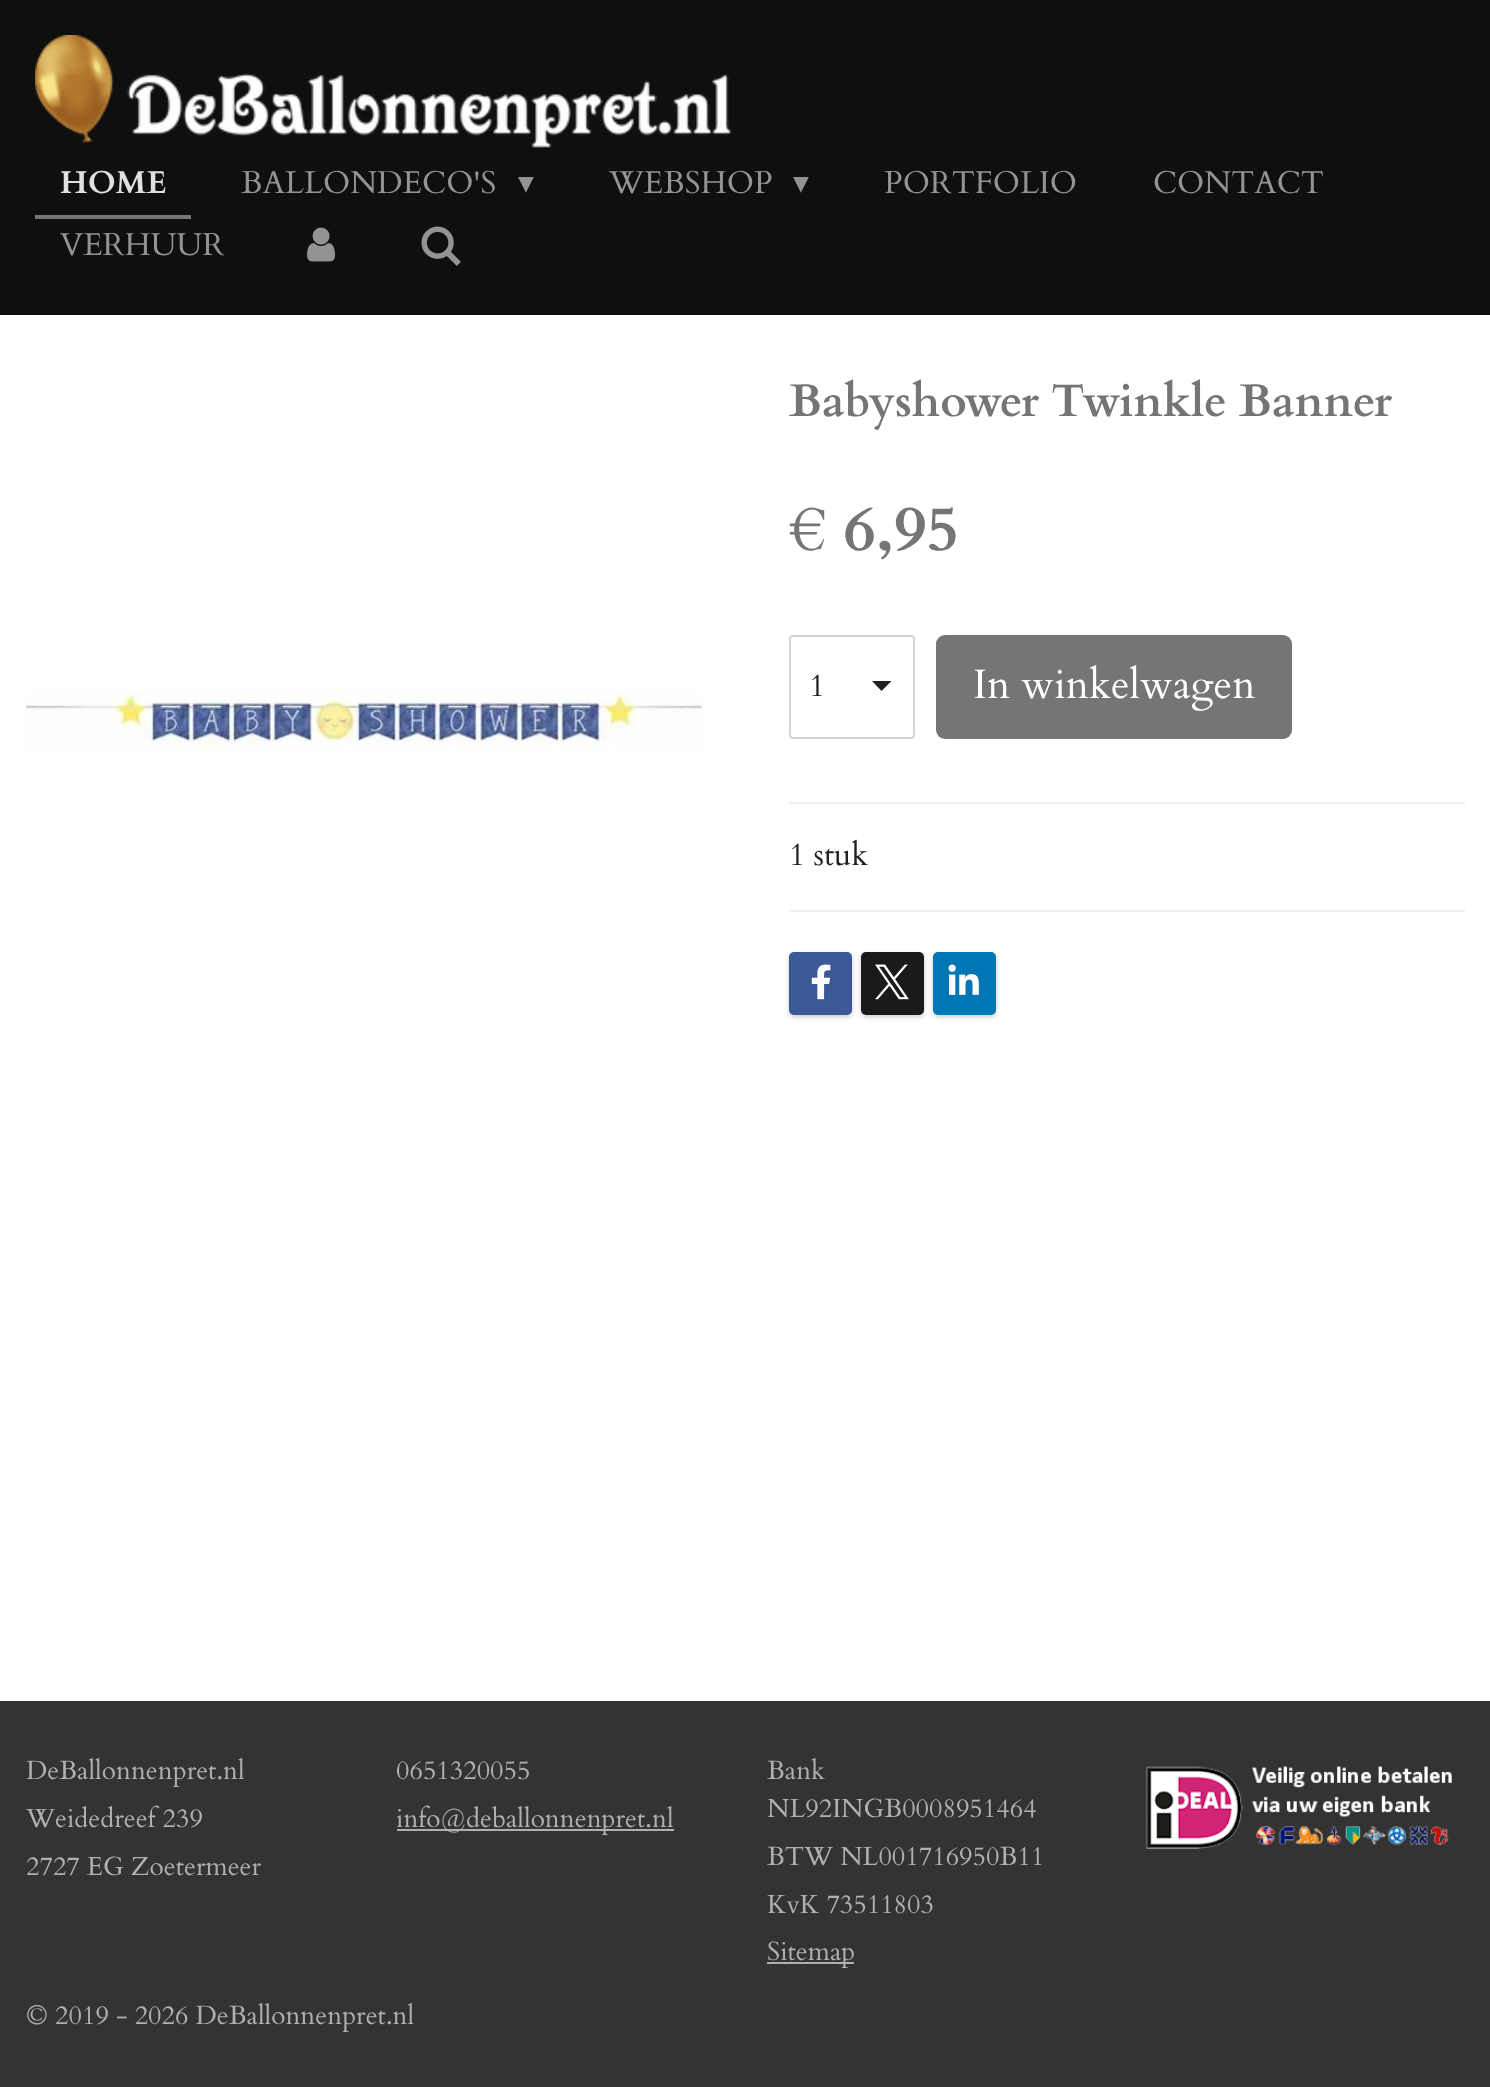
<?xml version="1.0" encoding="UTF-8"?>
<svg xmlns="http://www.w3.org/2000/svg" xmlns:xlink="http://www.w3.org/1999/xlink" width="1490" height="2087">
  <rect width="100%" height="100%" fill="#0f0f0f" />
  <image x="35" y="35" width="697" height="113" xlink:href="image1.png" />
  <path d="M 35 215 v 4 h 156 v -63 v 59 z" fill="#757575" />
  <image x="307" y="227" width="29" height="35" xlink:href="image2.png" />
  <image x="421" y="226" width="40" height="40" xlink:href="image3.png" />
  <rect y="315" width="1490" height="1386" fill="#ffffff" />
  <image x="26" y="690" width="676" height="64" xlink:href="image4.png" />
  <path d="M 881.5 691 l -9.5 -10 h 19.5 z" fill="#202020" />
  <rect x="790" y="636" width="124" height="102" rx="3" fill="none" stroke="#d3d3d3" stroke-width="2" />
  <rect x="936" y="635" width="356" height="104" rx="9" fill="#757575" />
  <rect x="789" y="802" width="676" height="2" fill="#efefef" />
  <rect x="789" y="910" width="676" height="2" fill="#efefef" />
  <rect x="789" y="954" width="63" height="63" rx="5" fill="#000000" fill-opacity="0.2" filter="blur(2.5px)" />
  <rect x="789" y="952" width="63" height="63" rx="5" fill="#3b5998" />
  <image x="811" y="964" width="20" height="36" xlink:href="image5.png" />
  <rect x="861" y="954" width="63" height="63" rx="5" fill="#000000" fill-opacity="0.2" filter="blur(2.5px)" />
  <rect x="861" y="952" width="63" height="63" rx="5" fill="#1a1a1a" />
  <image x="875" y="964" width="34" height="36" xlink:href="image6.png" />
  <rect x="933" y="954" width="63" height="63" rx="5" fill="#000000" fill-opacity="0.2" filter="blur(2.5px)" />
  <rect x="933" y="952" width="63" height="63" rx="5" fill="#0077b5" />
  <image x="948" y="964" width="31" height="31" xlink:href="image7.png" />
  <rect y="1701" width="1490" height="386" fill="#333333" />
  <rect x="397" y="1829" width="277" height="2" fill="#b1b0ac" />
  <rect x="767" y="1962" width="87" height="2" fill="#b1b0ac" />
  <image x="1146" y="1766" width="306" height="84" xlink:href="image8.png" />
  <text x="60" y="193" style="font-family: Cardo; font-size: 31.5px; font-weight: bold; fill: #e0e0e0">HOME</text>
  <text x="241" y="193" style="font-family: Cardo; font-size: 31.5px; fill: #939393">BALLONDECO'S</text>
  <text x="518" y="193" style="font-family: DejaVu Sans; font-size: 31.5px; fill: #939393">▾</text>
  <text x="609" y="193" style="font-family: Cardo; font-size: 31.5px; fill: #939393">WEBSHOP</text>
  <text x="793" y="193" style="font-family: DejaVu Sans; font-size: 31.5px; fill: #939393">▾</text>
  <text x="884" y="193" style="font-family: Cardo; font-size: 31.5px; fill: #939393">PORTFOLIO</text>
  <text x="1153" y="193" style="font-family: Cardo; font-size: 31.5px; fill: #939393">CONTACT</text>
  <text x="60" y="255" style="font-family: Cardo; font-size: 31.5px; fill: #939393">VERHUUR</text>
  <text x="789" y="416" style="font-family: Cardo; font-size: 45.5px; font-weight: bold; fill: #757575">Babyshower Twinkle Banner</text>
  <text x="789" y="550" style="font-family: Cardo; font-size: 63px; font-weight: bold; fill: #757575">€ 6,95</text>
  <text x="809" y="696" style="font-family: Cardo; font-size: 31.5px; fill: #202020">1</text>
  <text x="973" y="698" style="font-family: Cardo; font-size: 41px; fill: #ffffff">In winkelwagen</text>
  <text x="789" y="865" style="font-family: Cardo; font-size: 31.5px; fill: #202020">1 stuk</text>
  <text x="26" y="1779" style="font-family: Cardo; font-size: 26.25px; fill: #b1b0ac">DeBallonnenpret.nl</text>
  <text x="26" y="1827" style="font-family: Cardo; font-size: 26.25px; fill: #b1b0ac">Weidedreef 239</text>
  <text x="26" y="1875" style="font-family: Cardo; font-size: 26.25px; fill: #b1b0ac">2727 EG Zoetermeer</text>
  <text x="396" y="1779" style="font-family: Cardo; font-size: 26.25px; fill: #b1b0ac">0651320055</text>
  <text x="396" y="1827" style="font-family: Cardo; font-size: 26.25px; fill: #b1b0ac">info@deballonnenpret.nl</text>
  <text x="767" y="1779" style="font-family: Cardo; font-size: 26.25px; fill: #b1b0ac">Bank</text>
  <text x="767" y="1817" style="font-family: Cardo; font-size: 26.25px; fill: #b1b0ac">NL92INGB0008951464</text>
  <text x="767" y="1865" style="font-family: Cardo; font-size: 26.25px; fill: #b1b0ac">BTW NL001716950B11</text>
  <text x="767" y="1913" style="font-family: Cardo; font-size: 26.25px; fill: #b1b0ac">KvK 73511803</text>
  <text x="767" y="1960" style="font-family: Cardo; font-size: 26.25px; fill: #b1b0ac">Sitemap</text>
  <text x="26" y="2024" style="font-family: Cardo; font-size: 26.25px; fill: #b1b0ac">© 2019 - 2026 DeBallonnenpret.nl</text>
</svg>
